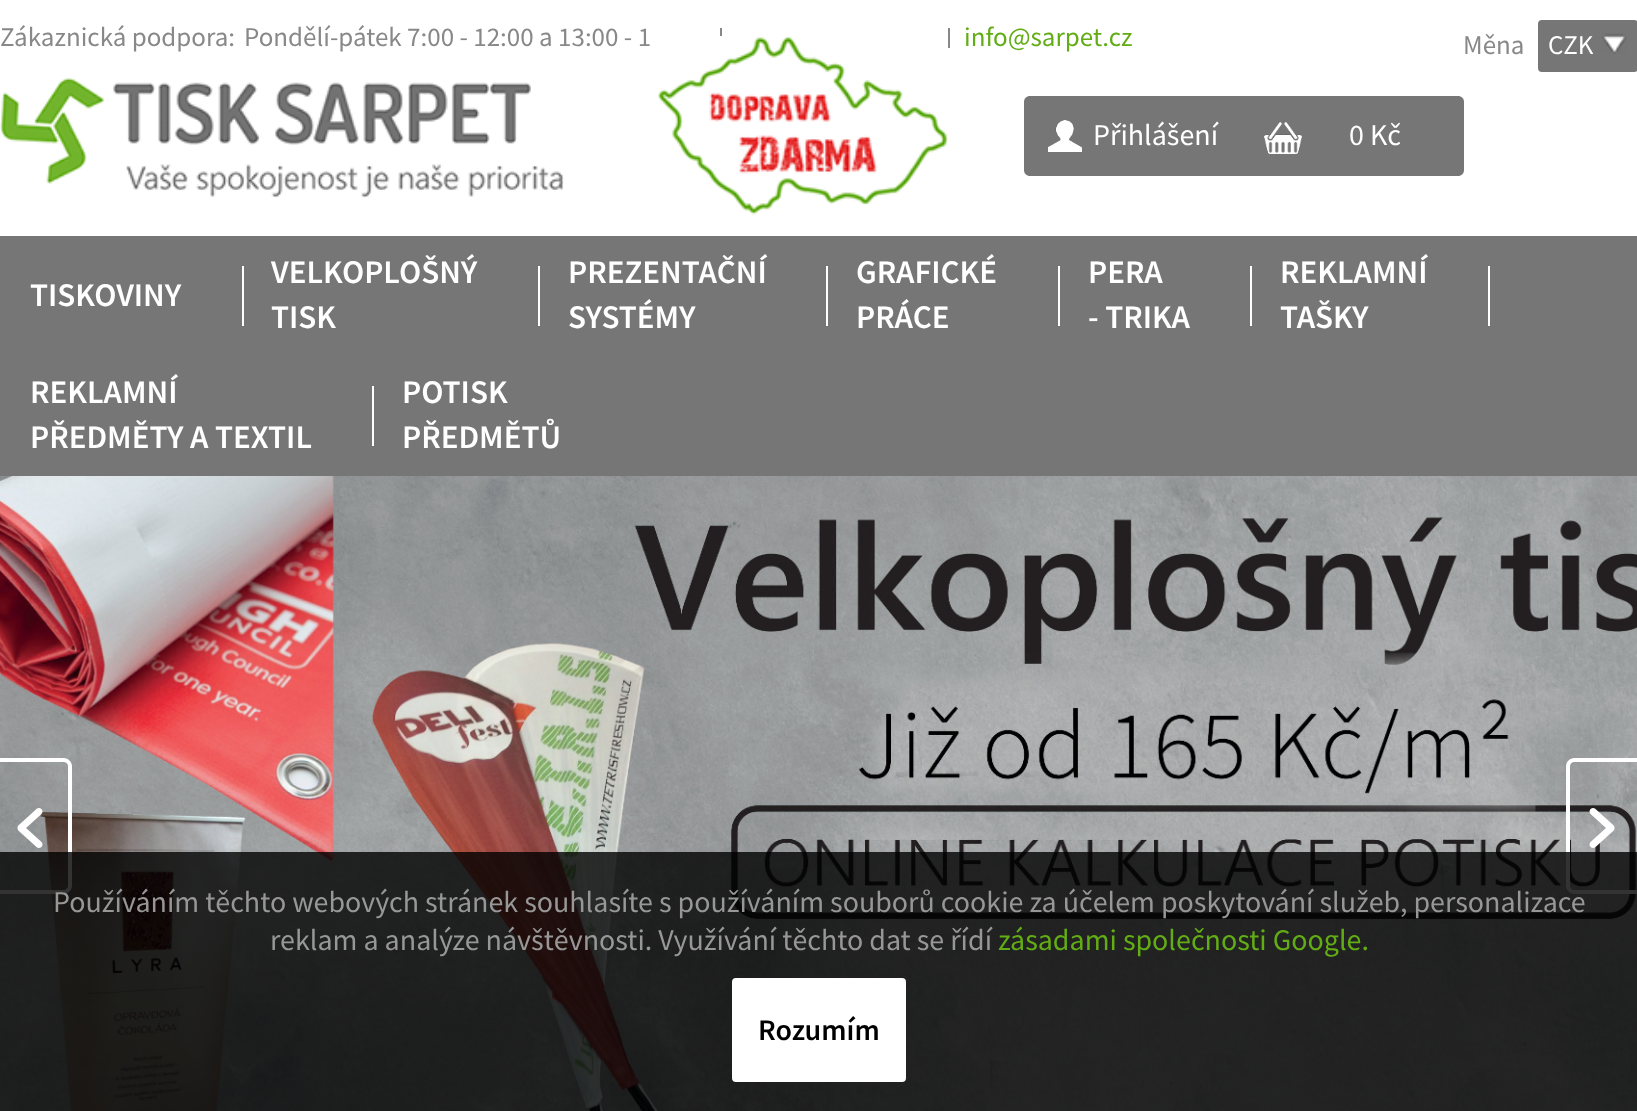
<?xml version="1.0" encoding="UTF-8"?>
<svg xmlns="http://www.w3.org/2000/svg" xmlns:xlink="http://www.w3.org/1999/xlink" width="1637" height="1111">
  <rect width="100%" height="100%" fill="#ffffff" />
  <rect x="720" y="28" width="2" height="8" fill="#888888" />
  <rect x="948" y="28" width="2" height="20" fill="#888888" />
  <rect x="1538" y="20" width="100" height="52" rx="4" fill="#767676" />
  <image x="1601" y="33" width="26" height="21" xlink:href="image1.png" />
  <image x="0" y="78" width="564" height="120" xlink:href="image2.png" />
  <image x="658" y="36" width="290" height="179" xlink:href="image3.png" />
  <path d="M 1030 96 h 214 v 80 h -214 c -3.5 0 -6 -2.5 -6 -6 v -68 c 0 -3.5 2.5 -6 6 -6 z" fill="#767676" />
  <image x="1048" y="120" width="34" height="32" xlink:href="image4.png" />
  <path d="M 1244 96 h 214 c 3.5 0 6 2.5 6 6 v 68 c 0 3.5 -2.5 6 -6 6 h -214 z" fill="#767676" />
  <image x="1264" y="122" width="38" height="32" xlink:href="image5.png" />
  <rect y="236" width="1637" height="240" fill="#767676" />
  <rect x="242" y="266" width="2" height="60" fill="#ffffff" />
  <rect x="538" y="266" width="2" height="60" fill="#ffffff" />
  <rect x="826" y="266" width="2" height="60" fill="#ffffff" />
  <rect x="1058" y="266" width="2" height="60" fill="#ffffff" />
  <rect x="1250" y="266" width="2" height="60" fill="#ffffff" />
  <rect x="1488" y="266" width="2" height="60" fill="#ffffff" />
  <rect x="372" y="386" width="2" height="60" fill="#ffffff" />
  <image x="0" y="476" width="1637" height="635" xlink:href="image6.png" />
  <path d="M 0 758 h 64 c 4 0 8 4 8 8 v 120 c 0 4 -4 8 -8 8 h -64 z m 0 4 h 64 c 2 0 4 2 4 4 v 120 c 0 2 -2 4 -4 4 h -64 z" fill="#ffffff" fill-rule="evenodd" />
  <image x="17" y="808" width="26" height="40" xlink:href="image7.png" />
  <path d="M 1574 758 h 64 v 136 h -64 c -4 0 -8 -4 -8 -8 v -120 c 0 -4 4 -8 8 -8 z m 0 4 h 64 v 128 h -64 c -2 0 -4 -2 -4 -4 v -120 c 0 -2 2 -4 4 -4 z" fill="#ffffff" fill-rule="evenodd" />
  <image x="1589" y="808" width="26" height="40" xlink:href="image8.png" />
  <rect y="852" width="1637" height="259" fill="#000000" fill-opacity="0.8" />
  <rect x="735" y="981" width="168" height="98" rx="1" fill="#ffffff" stroke="#ffffff" stroke-width="6" />
  <text x="0" y="46" style="font-family: Source Sans Pro; font-size: 27px; fill: #888888">Zákaznická podpora:</text>
  <text x="244" y="46" style="font-family: Source Sans Pro; font-size: 27px; fill: #888888">Pondělí-pátek 7:00 - 12:00 a 13:00 - 1</text>
  <text x="964" y="46" style="font-family: Source Sans Pro; font-size: 27px; fill: #62ac15">info@sarpet.cz</text>
  <text x="1463" y="54" style="font-family: Source Sans Pro; font-size: 27px; fill: #888888">Měna</text>
  <text x="1548" y="54" style="font-family: Source Sans Pro; font-size: 27px; fill: #ffffff">CZK</text>
  <text x="1093" y="145" style="font-family: Source Sans Pro; font-size: 30px; fill: #ffffff">Přihlášení</text>
  <text x="1349" y="145" style="font-family: Source Sans Pro; font-size: 30px; fill: #ffffff">0 Kč</text>
  <text x="30" y="306" style="font-family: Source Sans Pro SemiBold; font-size: 33px; font-weight: 600; fill: #ffffff">TISKOVINY</text>
  <text x="271" y="283" style="font-family: Source Sans Pro SemiBold; font-size: 33px; font-weight: 600; fill: #ffffff">VELKOPLOŠNÝ</text>
  <text x="271" y="328" style="font-family: Source Sans Pro SemiBold; font-size: 33px; font-weight: 600; fill: #ffffff">TISK</text>
  <text x="568" y="283" style="font-family: Source Sans Pro SemiBold; font-size: 33px; font-weight: 600; fill: #ffffff">PREZENTAČNÍ</text>
  <text x="568" y="328" style="font-family: Source Sans Pro SemiBold; font-size: 33px; font-weight: 600; fill: #ffffff">SYSTÉMY</text>
  <text x="856" y="283" style="font-family: Source Sans Pro SemiBold; font-size: 33px; font-weight: 600; fill: #ffffff">GRAFICKÉ</text>
  <text x="856" y="328" style="font-family: Source Sans Pro SemiBold; font-size: 33px; font-weight: 600; fill: #ffffff">PRÁCE</text>
  <text x="1088" y="283" style="font-family: Source Sans Pro SemiBold; font-size: 33px; font-weight: 600; fill: #ffffff">PERA</text>
  <text x="1088" y="328" style="font-family: Source Sans Pro SemiBold; font-size: 33px; font-weight: 600; fill: #ffffff">- TRIKA</text>
  <text x="1280" y="283" style="font-family: Source Sans Pro SemiBold; font-size: 33px; font-weight: 600; fill: #ffffff">REKLAMNÍ</text>
  <text x="1280" y="328" style="font-family: Source Sans Pro SemiBold; font-size: 33px; font-weight: 600; fill: #ffffff">TAŠKY</text>
  <text x="30" y="403" style="font-family: Source Sans Pro SemiBold; font-size: 33px; font-weight: 600; fill: #ffffff">REKLAMNÍ</text>
  <text x="30" y="448" style="font-family: Source Sans Pro SemiBold; font-size: 33px; font-weight: 600; fill: #ffffff">PŘEDMĚTY A TEXTIL</text>
  <text x="402" y="403" style="font-family: Source Sans Pro SemiBold; font-size: 33px; font-weight: 600; fill: #ffffff">POTISK</text>
  <text x="402" y="448" style="font-family: Source Sans Pro SemiBold; font-size: 33px; font-weight: 600; fill: #ffffff">PŘEDMĚTŮ</text>
  <text x="53" y="912" style="font-family: Source Sans Pro; font-size: 30px; fill: #979797">Používáním těchto webových stránek souhlasíte s používáním souborů cookie za účelem poskytování služeb, personalizace</text>
  <text x="270" y="950" style="font-family: Source Sans Pro; font-size: 30px; fill: #979797">reklam a analýze návštěvnosti. Využívání těchto dat se řídí</text>
  <text x="998" y="950" style="font-family: Source Sans Pro; font-size: 30px; fill: #62ac15">zásadami společnosti Google.</text>
  <text x="758" y="1040" style="font-family: Source Sans Pro SemiBold; font-size: 30px; font-weight: 600; fill: #000000">Rozumím</text>
</svg>
